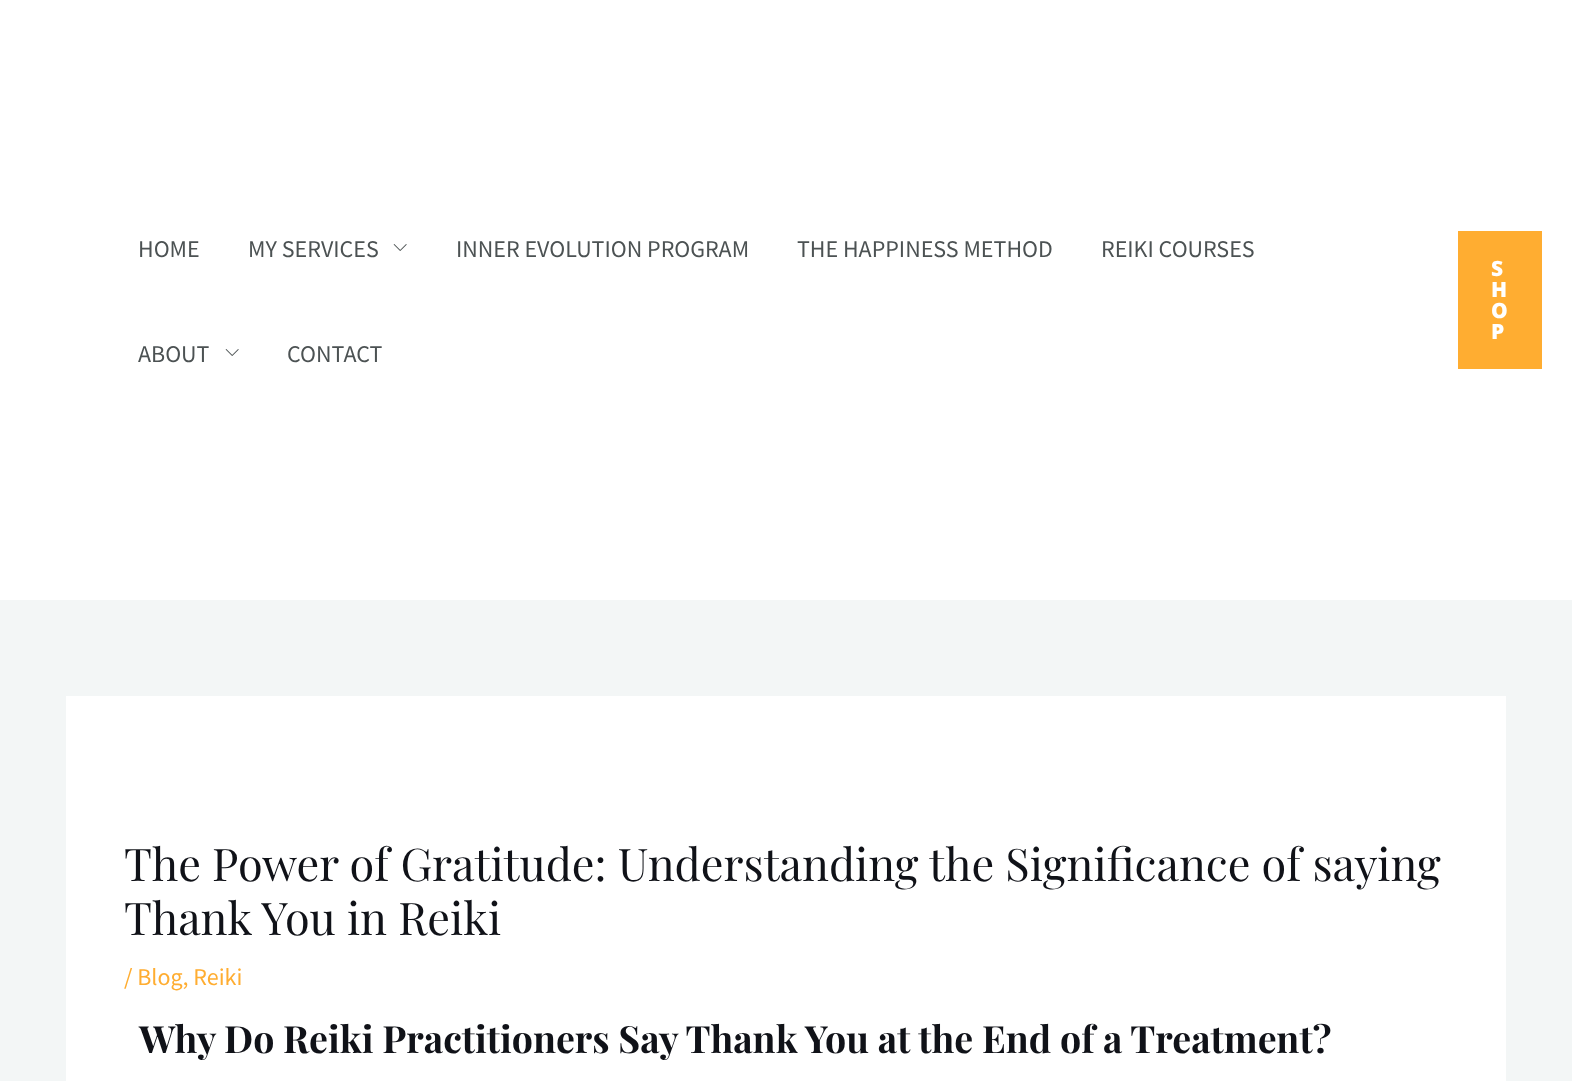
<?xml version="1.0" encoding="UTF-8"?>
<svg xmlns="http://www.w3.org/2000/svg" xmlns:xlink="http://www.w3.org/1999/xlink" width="1572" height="1081">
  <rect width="100%" height="100%" fill="#f3f6f6" />
  <rect width="1572" height="600" fill="#ffffff" />
  <image x="393" y="244" width="14" height="7" xlink:href="image1.png" />
  <image x="225" y="349" width="14" height="7" xlink:href="image1.png" />
  <rect x="1458" y="231" width="84" height="138" fill="#ffad31" />
  <rect x="66" y="696" width="1440" height="385" fill="#ffffff" />
  <text x="138" y="257" style="font-family: Source Sans Pro; font-size: 24px; fill: #4c5253">HOME</text>
  <text x="248" y="257" style="font-family: Source Sans Pro; font-size: 24px; fill: #4c5253">MY SERVICES</text>
  <text x="456" y="257" style="font-family: Source Sans Pro; font-size: 24px; fill: #4c5253">INNER EVOLUTION PROGRAM</text>
  <text x="797" y="257" style="font-family: Source Sans Pro; font-size: 24px; fill: #4c5253">THE HAPPINESS METHOD</text>
  <text x="1101" y="257" style="font-family: Source Sans Pro; font-size: 24px; fill: #4c5253">REIKI COURSES</text>
  <text x="138" y="362" style="font-family: Source Sans Pro; font-size: 24px; fill: #4c5253">ABOUT</text>
  <text x="287" y="362" style="font-family: Source Sans Pro; font-size: 24px; fill: #4c5253">CONTACT</text>
  <text x="1491" y="276" style="font-family: Open Sans; font-size: 21px; font-weight: 800; letter-spacing: 2px; fill: #ffffff">S</text>
  <text x="1491" y="297" style="font-family: Open Sans; font-size: 21px; font-weight: 800; letter-spacing: 2px; fill: #ffffff">H</text>
  <text x="1491" y="318" style="font-family: Open Sans; font-size: 21px; font-weight: 800; letter-spacing: 2px; fill: #ffffff">O</text>
  <text x="1491" y="339" style="font-family: Open Sans; font-size: 21px; font-weight: 800; letter-spacing: 2px; fill: #ffffff">P</text>
  <text x="124" y="881" style="font-family: Playfair Display; font-size: 45px; fill: #101218">The Power of Gratitude: Understanding the Significance of saying</text>
  <text x="124" y="935" style="font-family: Playfair Display; font-size: 45px; fill: #101218">Thank You in Reiki</text>
  <text x="124" y="985" style="font-family: Source Sans Pro; font-size: 24px; fill: #ffad31">/ Blog, Reiki</text>
  <text x="139" y="1053" style="font-family: Playfair Display; font-size: 37.5px; font-weight: bold; fill: #101218">Why Do Reiki Practitioners Say Thank You at the End of a Treatment?</text>
</svg>
